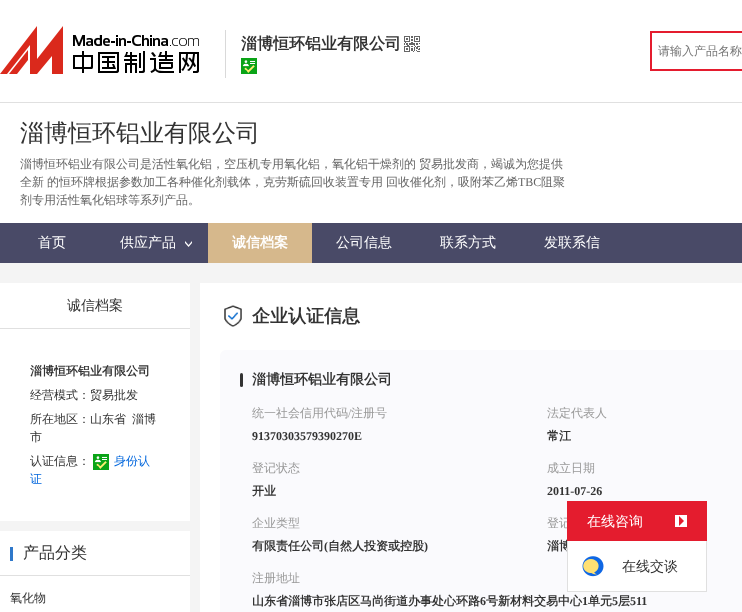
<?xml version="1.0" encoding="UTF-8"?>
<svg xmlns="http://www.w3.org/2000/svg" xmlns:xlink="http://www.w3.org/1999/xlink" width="742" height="612">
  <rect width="100%" height="100%" fill="#f4f4f4" />
  <rect width="742" height="102" fill="#ffffff" />
  <image x="0" y="26" width="199" height="48" xlink:href="image1.png" />
  <rect x="225" y="30" width="1" height="48" fill="#d9d9d9" />
  <image x="404" y="36" width="16" height="16" xlink:href="image2.png" />
  <image x="241" y="58" width="16" height="16" xlink:href="image3.png" />
  <rect x="650" y="31" width="92" height="2" fill="#e41c2e" />
  <rect x="650" y="69" width="92" height="2" fill="#e41c2e" />
  <rect x="650" y="31" width="2" height="40" fill="#e41c2e" />
  <rect y="103" width="742" height="120" fill="#ffffff" />
  <rect y="102" width="742" height="1" fill="#e0e0e0" />
  <rect y="223" width="742" height="40" fill="#494a67" />
  <image x="185" y="241" width="7" height="6" xlink:href="image4.png" />
  <rect x="208" y="223" width="104" height="40" fill="#d6b88c" />
  <rect y="283" width="190" height="238" fill="#ffffff" />
  <rect y="328" width="190" height="1" fill="#e0e0e0" />
  <image x="93" y="454" width="16" height="16" xlink:href="image3.png" />
  <rect y="531" width="190" height="81" fill="#ffffff" />
  <rect y="575" width="190" height="1" fill="#e0e0e0" />
  <rect x="10" y="547" width="3" height="14" fill="#2f78ca" />
  <rect x="200" y="283" width="542" height="329" fill="#ffffff" />
  <image x="224" y="305" width="18" height="22" xlink:href="image5.png" />
  <rect x="220" y="350" width="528" height="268" rx="6" fill="#fafafd" />
  <rect x="240" y="373" width="3" height="14" rx="1.5" fill="#333333" />
  <rect x="706" y="541" width="1" height="51" fill="#e0e0e0" />
  <rect x="567" y="591" width="140" height="1" fill="#e0e0e0" />
  <text x="241" y="49" style="font-family: WenQuanYi Zen Hei; font-size: 16px; font-weight: bold; fill: #333333">淄博恒环铝业有限公司</text>
  <text x="658" y="55" style="font-family: WenQuanYi Zen Hei; font-size: 12px; font-weight: 500; fill: #757575">请输入产品名称</text>
  <text x="20" y="141" style="font-family: WenQuanYi Zen Hei; font-size: 24px; font-weight: 500; fill: #333333">淄博恒环铝业有限公司</text>
  <text x="20" y="168" style="font-family: WenQuanYi Zen Hei; font-size: 12px; font-weight: 500; fill: #666666">淄博恒环铝业有限公司是活性氧化铝，空压机专用氧化铝，氧化铝干燥剂的</text>
  <text x="419" y="168" style="font-family: WenQuanYi Zen Hei; font-size: 12px; font-weight: 500; fill: #666666">贸易批发商，竭诚为您提供</text>
  <text x="20" y="186" style="font-family: WenQuanYi Zen Hei; font-size: 12px; font-weight: 500; fill: #666666">全新</text>
  <text x="47" y="186" style="font-family: WenQuanYi Zen Hei; font-size: 12px; font-weight: 500; fill: #666666">的恒环牌根据参数加工各种催化剂载体，克劳斯硫回收装置专用</text>
  <text x="386" y="186" style="font-family: WenQuanYi Zen Hei; font-size: 12px; font-weight: 500; fill: #666666">回收催化剂，吸附苯乙烯</text>
  <text x="518" y="186" style="font-family: Liberation Serif; font-size: 12px; fill: #666666">TBC</text>
  <text x="541" y="186" style="font-family: WenQuanYi Zen Hei; font-size: 12px; font-weight: 500; fill: #666666">阻聚</text>
  <text x="20" y="204" style="font-family: WenQuanYi Zen Hei; font-size: 12px; font-weight: 500; fill: #666666">剂专用活性氧化铝球等系列产品。</text>
  <text x="38" y="247" style="font-family: WenQuanYi Zen Hei; font-size: 14px; font-weight: 500; fill: #ffffff">首页</text>
  <text x="120" y="247" style="font-family: WenQuanYi Zen Hei; font-size: 14px; font-weight: 500; fill: #ffffff">供应产品</text>
  <text x="232" y="247" style="font-family: WenQuanYi Zen Hei; font-size: 14px; font-weight: bold; fill: #ffffff">诚信档案</text>
  <text x="336" y="247" style="font-family: WenQuanYi Zen Hei; font-size: 14px; font-weight: 500; fill: #ffffff">公司信息</text>
  <text x="440" y="247" style="font-family: WenQuanYi Zen Hei; font-size: 14px; font-weight: 500; fill: #ffffff">联系方式</text>
  <text x="544" y="247" style="font-family: WenQuanYi Zen Hei; font-size: 14px; font-weight: 500; fill: #ffffff">发联系信</text>
  <text x="67" y="310" style="font-family: WenQuanYi Zen Hei; font-size: 14px; font-weight: 500; fill: #333333">诚信档案</text>
  <text x="30" y="375" style="font-family: WenQuanYi Zen Hei; font-size: 12px; font-weight: bold; fill: #333333">淄博恒环铝业有限公司</text>
  <text x="30" y="399" style="font-family: WenQuanYi Zen Hei; font-size: 12px; font-weight: 500; fill: #333333">经营模式：贸易批发</text>
  <text x="30" y="423" style="font-family: WenQuanYi Zen Hei; font-size: 12px; font-weight: 500; fill: #333333">所在地区：山东省</text>
  <text x="132" y="423" style="font-family: WenQuanYi Zen Hei; font-size: 12px; font-weight: 500; fill: #333333">淄博</text>
  <text x="30" y="441" style="font-family: WenQuanYi Zen Hei; font-size: 12px; font-weight: 500; fill: #333333">市</text>
  <text x="30" y="465" style="font-family: WenQuanYi Zen Hei; font-size: 12px; font-weight: 500; fill: #333333">认证信息：</text>
  <text x="114" y="465" style="font-family: WenQuanYi Zen Hei; font-size: 12px; font-weight: 500; fill: #0066dd">身份认</text>
  <text x="30" y="483" style="font-family: WenQuanYi Zen Hei; font-size: 12px; font-weight: 500; fill: #0066dd">证</text>
  <text x="23" y="558" style="font-family: WenQuanYi Zen Hei; font-size: 16px; font-weight: 500; fill: #333333">产品分类</text>
  <text x="10" y="602" style="font-family: WenQuanYi Zen Hei; font-size: 12px; font-weight: 500; fill: #333333">氧化物</text>
  <text x="252" y="322" style="font-family: WenQuanYi Zen Hei; font-size: 18px; font-weight: bold; fill: #333333">企业认证信息</text>
  <text x="252" y="384" style="font-family: WenQuanYi Zen Hei; font-size: 14px; font-weight: bold; fill: #333333">淄博恒环铝业有限公司</text>
  <text x="252" y="417" style="font-family: WenQuanYi Zen Hei; font-size: 12px; font-weight: 500; fill: #999999">统一社会信用代码</text>
  <text x="348" y="417" style="font-family: Liberation Serif; font-size: 12px; fill: #999999">/</text>
  <text x="351" y="417" style="font-family: WenQuanYi Zen Hei; font-size: 12px; font-weight: 500; fill: #999999">注册号</text>
  <text x="252" y="440" style="font-family: Liberation Serif; font-size: 12px; font-weight: bold; fill: #333333">91370303579390270E</text>
  <text x="547" y="417" style="font-family: WenQuanYi Zen Hei; font-size: 12px; font-weight: 500; fill: #999999">法定代表人</text>
  <text x="547" y="440" style="font-family: WenQuanYi Zen Hei; font-size: 12px; font-weight: bold; fill: #333333">常江</text>
  <text x="252" y="472" style="font-family: WenQuanYi Zen Hei; font-size: 12px; font-weight: 500; fill: #999999">登记状态</text>
  <text x="252" y="495" style="font-family: WenQuanYi Zen Hei; font-size: 12px; font-weight: bold; fill: #333333">开业</text>
  <text x="547" y="472" style="font-family: WenQuanYi Zen Hei; font-size: 12px; font-weight: 500; fill: #999999">成立日期</text>
  <text x="547" y="495" style="font-family: Liberation Serif; font-size: 12px; font-weight: bold; fill: #333333">2011-07-26</text>
  <text x="252" y="527" style="font-family: WenQuanYi Zen Hei; font-size: 12px; font-weight: 500; fill: #999999">企业类型</text>
  <text x="252" y="550" style="font-family: WenQuanYi Zen Hei; font-size: 12px; font-weight: bold; fill: #333333">有限责任公司</text>
  <text x="324" y="550" style="font-family: Liberation Serif; font-size: 12px; font-weight: bold; fill: #333333">(</text>
  <text x="328" y="550" style="font-family: WenQuanYi Zen Hei; font-size: 12px; font-weight: bold; fill: #333333">自然人投资或控股</text>
  <text x="424" y="550" style="font-family: Liberation Serif; font-size: 12px; font-weight: bold; fill: #333333">)</text>
  <text x="547" y="527" style="font-family: WenQuanYi Zen Hei; font-size: 12px; font-weight: 500; fill: #999999">登记</text>
  <text x="547" y="550" style="font-family: WenQuanYi Zen Hei; font-size: 12px; font-weight: bold; fill: #333333">淄博</text>
  <text x="252" y="582" style="font-family: WenQuanYi Zen Hei; font-size: 12px; font-weight: 500; fill: #999999">注册地址</text>
  <text x="252" y="605" style="font-family: WenQuanYi Zen Hei; font-size: 12px; font-weight: bold; fill: #333333">山东省淄博市张店区马尚街道办事处心环路</text>
  <text x="480" y="605" style="font-family: Liberation Serif; font-size: 12px; font-weight: bold; fill: #333333">6</text>
  <text x="486" y="605" style="font-family: WenQuanYi Zen Hei; font-size: 12px; font-weight: bold; fill: #333333">号新材料交易中心</text>
  <text x="582" y="605" style="font-family: Liberation Serif; font-size: 12px; font-weight: bold; fill: #333333">1</text>
  <text x="588" y="605" style="font-family: WenQuanYi Zen Hei; font-size: 12px; font-weight: bold; fill: #333333">单元</text>
  <text x="612" y="605" style="font-family: Liberation Serif; font-size: 12px; font-weight: bold; fill: #333333">5</text>
  <text x="618" y="605" style="font-family: WenQuanYi Zen Hei; font-size: 12px; font-weight: bold; fill: #333333">层</text>
  <text x="630" y="605" style="font-family: Liberation Serif; font-size: 12px; font-weight: bold; fill: #333333">511</text>
  <rect x="567" y="501" width="140" height="40" fill="#e41c2e" />
  <text x="587" y="526" style="font-family: WenQuanYi Zen Hei; font-size: 14px; font-weight: 500; fill: #ffffff">在线咨询</text>
  <rect x="675" y="515" width="12" height="12" fill="#ffffff" />
  <path d="M 679 526 v -10 l 5 5 z" fill="#e41c2e" />
  <rect x="568" y="541" width="138" height="50" fill="#ffffff" />
  <rect x="567" y="541" width="1" height="51" fill="#e0e0e0" />
  <image x="582" y="556" width="22" height="21" xlink:href="image6.png" />
  <text x="622" y="571" style="font-family: WenQuanYi Zen Hei; font-size: 14px; font-weight: 500; fill: #333333">在线交谈</text>
</svg>
